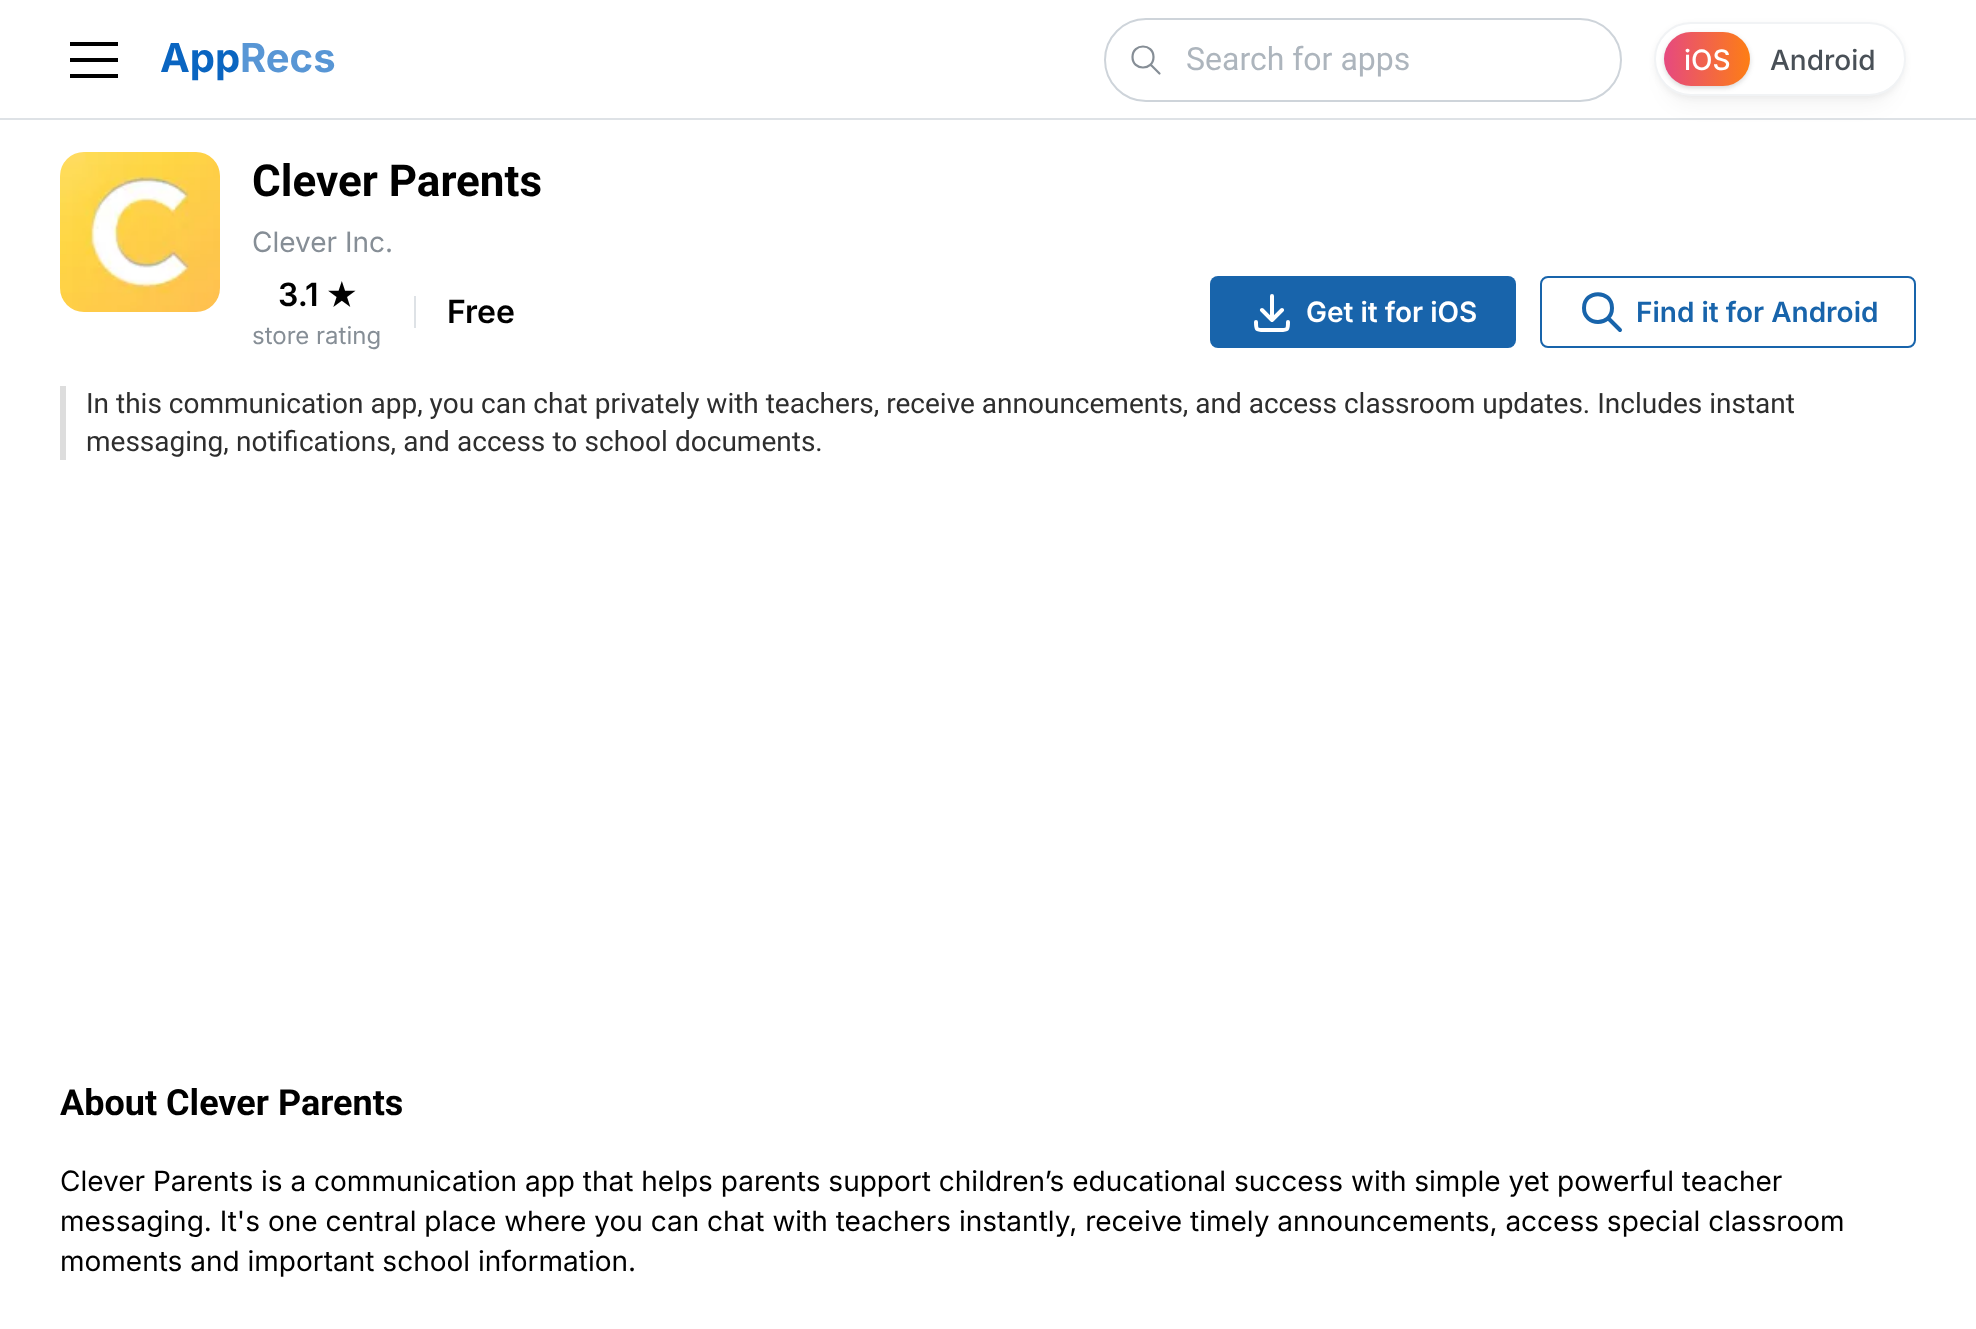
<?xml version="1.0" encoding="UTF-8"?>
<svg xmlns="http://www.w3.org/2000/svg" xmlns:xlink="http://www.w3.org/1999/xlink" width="1976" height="1329">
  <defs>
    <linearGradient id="g1" gradientUnits="userSpaceOnUse" x1="1664" y1="59" x2="1750" y2="59"><stop offset="0" stop-color="#e64980" /><stop offset="1" stop-color="#fd7e14" /></linearGradient>
  </defs>
  <rect width="100%" height="100%" fill="#ffffff" />
  <rect y="118" width="1976" height="2" fill="#dee2e6" />
  <rect x="70" y="58" width="48" height="4" fill="#000000" />
  <rect x="70" y="42" width="48" height="4" fill="#000000" />
  <rect x="70" y="74" width="48" height="4" fill="#000000" />
  <rect x="1105" y="19" width="516" height="82" rx="41" fill="none" stroke="#ced4da" stroke-width="2" />
  <path d="M 1132.5 57 c 0 14 21 14 21 0 c 0 -14 -21 -14 -21 0 m 27 16.5 l -9 -9" fill="none" stroke="#868e96" stroke-width="2.2" stroke-linecap="round" stroke-linejoin="round" />
  <rect x="1664" y="52" width="232" height="54" rx="27" fill="#000000" fill-opacity="0.04" filter="blur(10px)" />
  <rect x="1654" y="24" width="252" height="74" rx="37" fill="#000000" fill-opacity="0.05" filter="blur(3px)" />
  <rect x="1655" y="23" width="250" height="72" rx="36" fill="#ffffff" stroke="#f1f3f5" stroke-width="2" />
  <rect x="1664" y="34" width="86" height="54" rx="27" fill="#000000" fill-opacity="0.1" filter="blur(2px)" />
  <rect x="1664" y="34" width="86" height="54" rx="27" fill="#000000" fill-opacity="0.05" filter="blur(3px)" />
  <rect x="1664" y="32" width="86" height="54" rx="27" fill="url(#g1)" />
  <image x="60" y="152" width="160" height="160" xlink:href="image1.png" />
  <rect x="414" y="296" width="2" height="32" fill="#dee2e6" />
  <rect x="1210" y="276" width="306" height="72" rx="8" fill="#1864ab" />
  <path d="M 1256 322 c 0 7.5 0 8 8 8 h 16 c 8 0 8 -0.5 8 -8 m -26 -12 l 10 10 l 10 -10 m -10 -14 v 24" fill="none" stroke="#ffffff" stroke-width="4" stroke-linecap="round" stroke-linejoin="round" />
  <rect x="1541" y="277" width="374" height="70" rx="7" fill="none" stroke="#1864ab" stroke-width="2" />
  <path d="M 1584 308 c 0 18.5 28 18.5 28 0 c 0 -18.5 -28 -18.5 -28 0 m 36 22 l -12 -12" fill="none" stroke="#1864ab" stroke-width="4" stroke-linecap="round" stroke-linejoin="round" />
  <rect x="60" y="386" width="6" height="74" fill="#dddddd" />
  <text x="160" y="72" style="font-family: Inter; font-size: 40px; font-weight: bold; fill: #0a65c1">App</text>
  <text x="240" y="72" style="font-family: Inter; font-size: 40px; font-weight: bold; fill: #5896d5">Recs</text>
  <text x="1186" y="70" style="font-family: Roboto; font-size: 32px; fill: #adb5bd">Search for apps</text>
  <text x="1684" y="70" style="font-family: Inter; font-size: 28px; font-weight: 500; fill: #ffffff">iOS</text>
  <text x="1770" y="70" style="font-family: Inter; font-size: 28px; font-weight: 500; fill: #495057">Android</text>
  <text x="252" y="196" style="font-family: Roboto; font-size: 44px; font-weight: bold; fill: #000000">Clever Parents</text>
  <text x="252" y="252" style="font-family: Inter; font-size: 28px; fill: #868e96">Clever Inc.</text>
  <text x="278" y="306" style="font-family: Inter; font-size: 32px; font-weight: 600; fill: #000000">3.1</text>
  <text x="327" y="306" style="font-family: DejaVu Sans; font-size: 32px; font-weight: bold; fill: #000000">★</text>
  <text x="252" y="344" style="font-family: Inter; font-size: 24px; fill: #868e96">store rating</text>
  <text x="447" y="323" style="font-family: Inter; font-size: 32px; font-weight: 600; fill: #000000">Free</text>
  <text x="1306" y="322" style="font-family: Inter; font-size: 28px; font-weight: 600; fill: #ffffff">Get it for iOS</text>
  <text x="1636" y="322" style="font-family: Inter; font-size: 28px; font-weight: 600; fill: #1864ab">Find it for Android</text>
  <text x="86" y="413" style="font-family: Roboto; font-size: 28px; fill: #2e2e2e">In this communication app, you can chat privately with teachers, receive announcements, and access classroom updates. Includes instant</text>
  <text x="86" y="451" word-spacing="0.25" style="font-family: Roboto; font-size: 28px; fill: #2e2e2e">messaging, notifications, and access to school documents.</text>
  <text x="60" y="1115" style="font-family: Roboto; font-size: 36px; font-weight: bold; fill: #000000">About Clever Parents</text>
  <text x="60" y="1191" style="font-family: Inter; font-size: 28px; fill: #000000">Clever Parents is a communication app that helps parents support children’s educational success with simple yet powerful teacher</text>
  <text x="60" y="1231" style="font-family: Inter; font-size: 28px; fill: #000000">messaging. It's one central place where you can chat with teachers instantly, receive timely announcements, access special classroom</text>
  <text x="60" y="1271" style="font-family: Inter; font-size: 28px; fill: #000000">moments and important school information.</text>
</svg>
